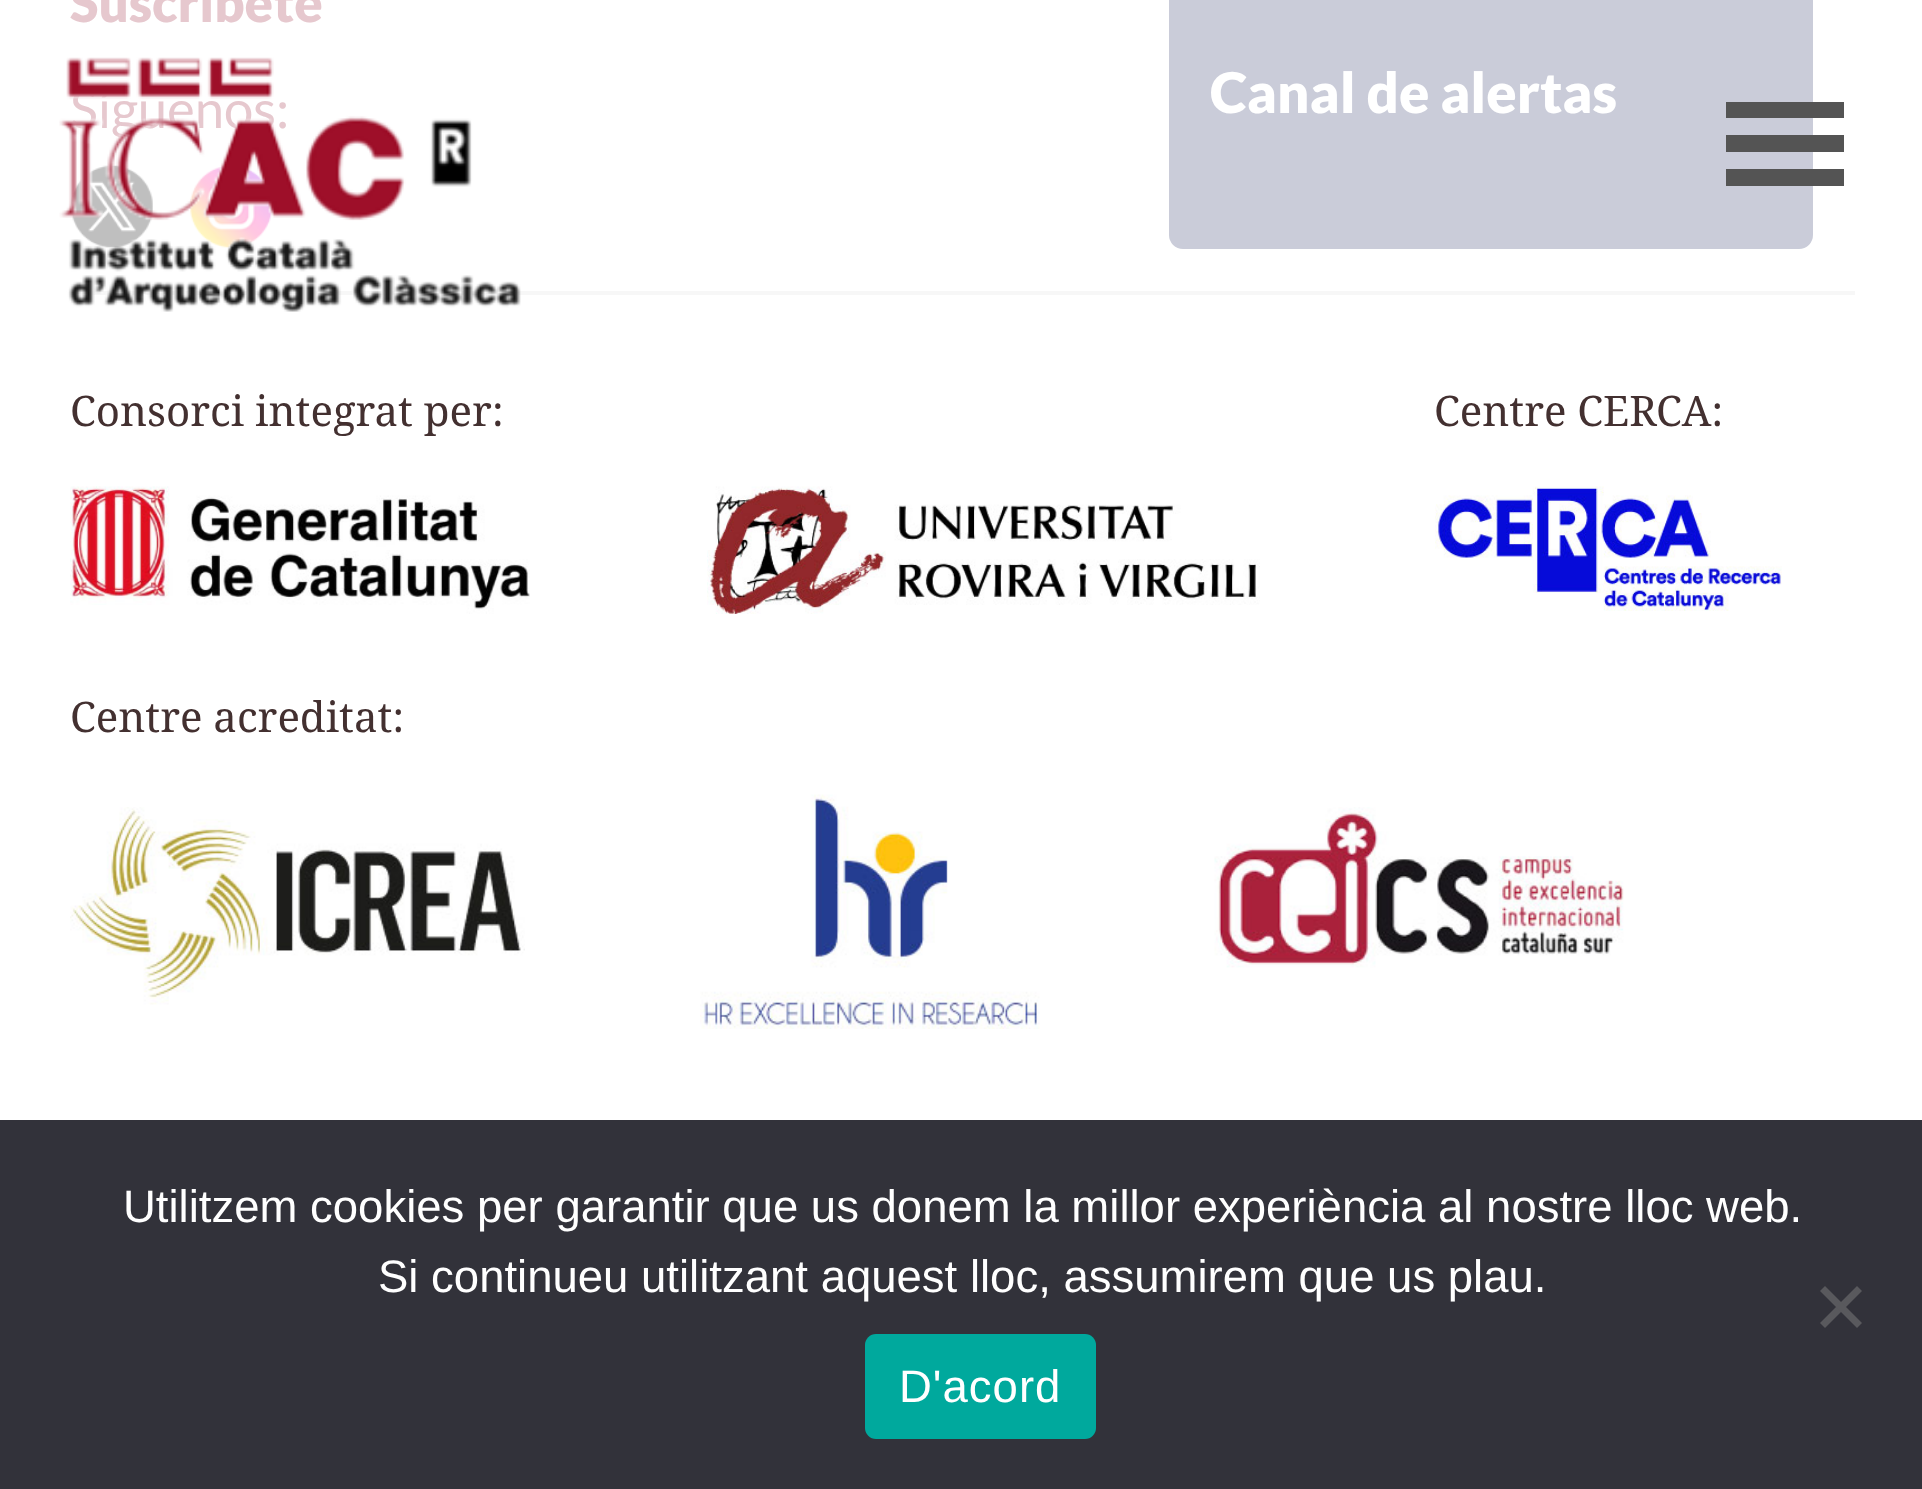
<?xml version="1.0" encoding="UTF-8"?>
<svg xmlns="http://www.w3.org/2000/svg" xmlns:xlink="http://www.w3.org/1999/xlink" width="1922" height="1489">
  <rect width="100%" height="100%" fill="#ffffff" />
  <rect x="70" y="291" width="1785" height="4" fill="#f7f7f7" />
  <image x="71" y="165" width="82" height="83" xlink:href="image1.png" />
  <image x="190" y="165" width="82" height="83" xlink:href="image2.png" />
  <rect x="1169" y="-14" width="644" height="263" rx="14" fill="#caccd9" />
  <image x="70" y="486" width="460" height="128" xlink:href="image3.png" />
  <image x="707" y="486" width="553" height="128" xlink:href="image4.png" />
  <image x="1435" y="486" width="347" height="125" xlink:href="image5.png" />
  <image x="70" y="807" width="455" height="198" xlink:href="image6.png" />
  <image x="700" y="794" width="340" height="235" xlink:href="image7.png" />
  <image x="1214" y="807" width="410" height="161" xlink:href="image8.png" />
  <path d="M 1726 186 h 118 v -17 h -118 z m 0 -84 v 16 h 118 v -16 z m 0 50 h 118 v -17 h -118 z" fill="#545454" />
  <rect y="1120" width="1922" height="369" fill="#32323a" />
  <path d="M 1857 1286 l 5 5 l -37 37 l -5 -5 z" fill="#59595d" />
  <path d="M 1820 1291 l 5 -5 l 37 37 l -5 5 z" fill="#59595d" />
  <rect x="865" y="1334" width="231" height="105" rx="11" fill="#00a99d" />
  <text x="70" y="22" style="font-family: Lato; font-size: 52.5px; font-weight: 900; fill: #e6c8ce">Suscríbete</text>
  <text x="70" y="128" style="font-family: Lato; font-size: 52.5px; fill: #e6c8ce">Síguenos:</text>
  <text x="1210" y="113" style="font-family: Lato; font-size: 56px; font-weight: 900; fill: #ffffff">Canal de alertas</text>
  <text x="70" y="426" style="font-family: Noto Serif; font-size: 42px; fill: #433030">Consorci integrat per:</text>
  <text x="1434" y="426" style="font-family: Noto Serif; font-size: 42px; fill: #433030">Centre CERCA:</text>
  <text x="70" y="732" style="font-family: Noto Serif; font-size: 42px; fill: #433030">Centre acreditat:</text>
  <image x="59" y="57" width="462" height="255" xlink:href="image9.png" />
  <text x="123" y="1222" style="font-family: Liberation Sans; font-size: 45.5px; fill: #ffffff">Utilitzem cookies per garantir que us donem la millor experiència al nostre lloc web.</text>
  <text x="378" y="1292" style="font-family: Liberation Sans; font-size: 45.5px; fill: #ffffff">Si continueu utilitzant aquest lloc, assumirem que us plau.</text>
  <text x="899" y="1402" style="font-family: Liberation Sans; font-size: 45.5px; letter-spacing: 1px; fill: #ffffff">D'acord</text>
</svg>
